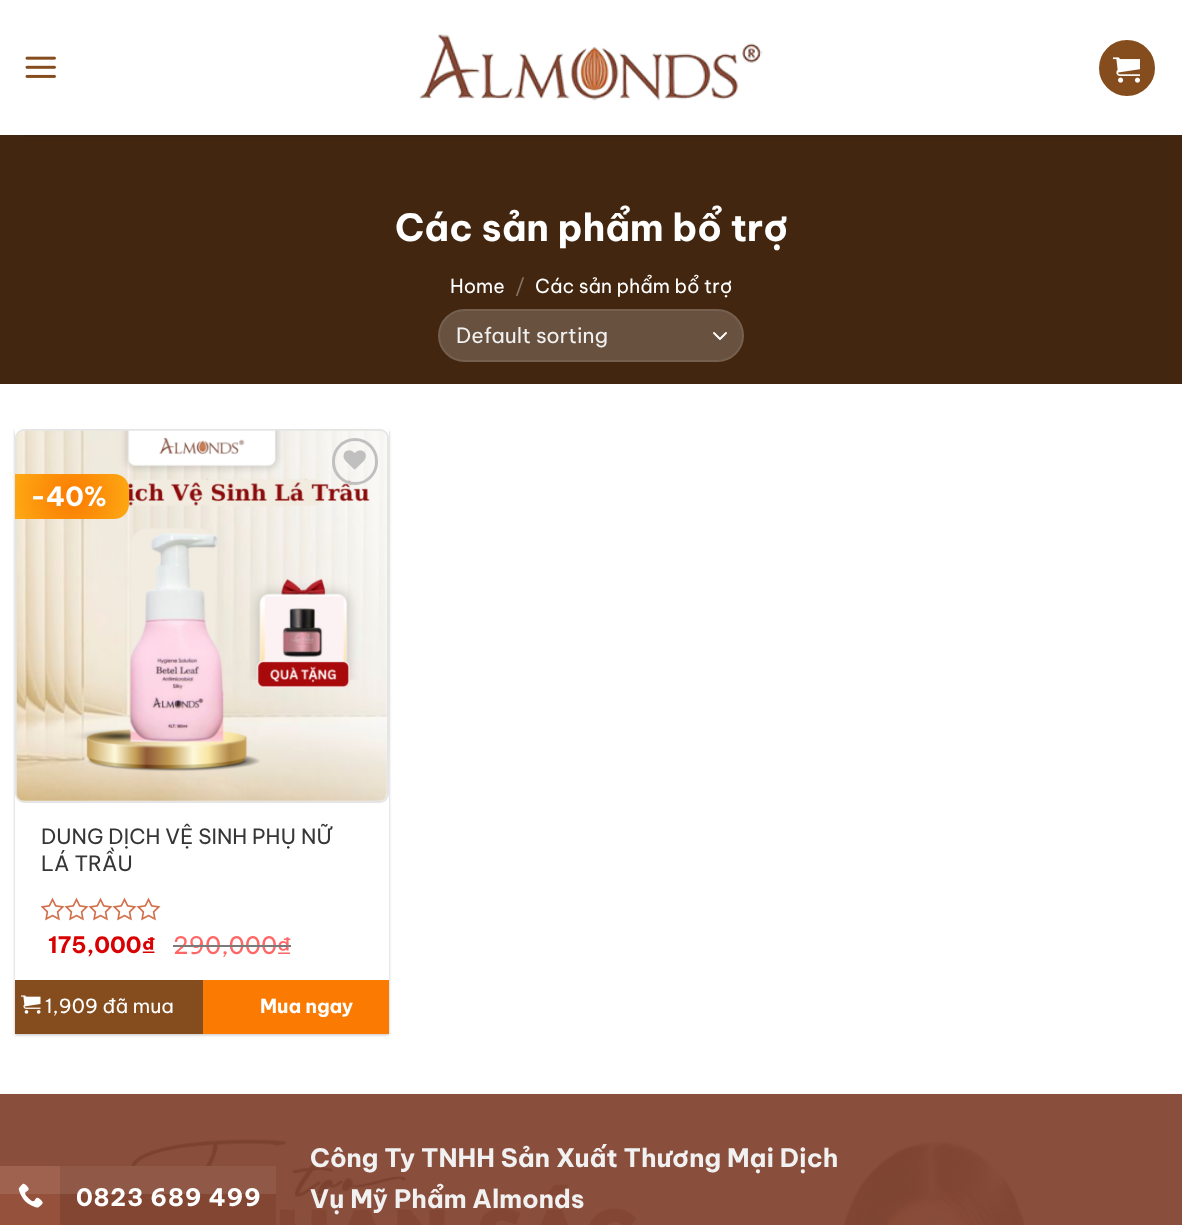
<?xml version="1.0" encoding="UTF-8"?>
<svg xmlns="http://www.w3.org/2000/svg" xmlns:xlink="http://www.w3.org/1999/xlink" width="1182" height="1225">
  <defs>
    <radialGradient id="g1" gradientUnits="userSpaceOnUse" cx="72" cy="497" r="61"><stop offset="0" stop-color="#fb7a01" /><stop offset="1" stop-color="#fea914" /></radialGradient>
  </defs>
  <rect width="100%" height="100%" fill="#ffffff" />
  <image x="25" y="56" width="31" height="22" xlink:href="image1.png" />
  <image x="419" y="34" width="344" height="67" xlink:href="image2.png" />
  <circle cx="1127" cy="68" r="29" fill="#854d1e" stroke="#ffffff" stroke-width="2" />
  <image x="1113" y="57" width="27" height="26" xlink:href="image3.png" />
  <rect y="135" width="1182" height="249" fill="#42260f" />
  <rect x="23" y="135" width="1137" height="2" fill="#3a2310" />
  <rect x="438" y="309" width="306" height="53" rx="26.5" fill="#68513f" />
  <path d="M 714 333 l 6 6 l 6 -6" fill="none" stroke="#ffffff" stroke-width="2" stroke-linecap="round" stroke-linejoin="round" />
  <rect x="439" y="310" width="304" height="51" rx="25.5" fill="none" stroke="#ffffff" stroke-opacity="0.09" stroke-width="2" />
  <rect x="15" y="431" width="374" height="604" fill="#000000" fill-opacity="0.24" filter="blur(1.5px)" />
  <rect x="15" y="429" width="374" height="551" fill="#ffffff" />
  <rect x="16" y="430" width="372" height="372" rx="8" fill="none" stroke="#e5e5e5" stroke-width="2" />
  <image x="16" y="430" width="371" height="371" xlink:href="image4.png" />
  <path d="M 15 474 h 99 c 8.5 0 15 6.5 15 15 v 15 c 0 8.5 -6.5 15 -15 15 h -99 z" fill="url(#g1)" />
  <rect x="333.5" y="439.5" width="43" height="44" rx="21.5" fill="none" stroke="#c0c0c0" stroke-width="3" />
  <image x="343" y="450" width="23" height="20" xlink:href="image5.png" />
  <image x="41" y="897" width="120" height="24" xlink:href="image6.png" />
  <rect x="15" y="980" width="188" height="54" fill="#854d1e" />
  <image x="21" y="995" width="20" height="19" xlink:href="image7.png" />
  <rect x="203" y="980" width="186" height="54" fill="#fb7a01" />
  <image x="0" y="1093" width="1182" height="132" xlink:href="image8.png" />
  <rect x="60" y="1166" width="216" height="59" fill="#834633" />
  <rect y="1166" width="60" height="59" fill="#95513c" />
  <image x="18" y="1183" width="25" height="25" xlink:href="image9.png" />
  <rect y="1166" width="276" height="28" fill="#ffffff" fill-opacity="0.1" />
  <text x="395" y="241" style="font-family: Be Vietnam Pro; font-size: 37.5px; font-weight: bold; fill: #ffffff">Các sản phẩm bổ trợ</text>
  <text x="450" y="293" style="font-family: Be Vietnam Pro; font-size: 19.25px; fill: #ffffff">Home</text>
  <text x="515" y="293" style="font-family: Be Vietnam Pro; font-size: 19.25px; fill: #847263">/</text>
  <text x="535" y="293" style="font-family: Be Vietnam Pro; font-size: 19.25px; fill: #ffffff">Các sản phẩm bổ trợ</text>
  <text x="456" y="343" style="font-family: Be Vietnam Pro; font-size: 21px; fill: #f1f1f1">Default sorting</text>
  <text x="30" y="506" style="font-family: Be Vietnam Pro; font-size: 26.5px; font-weight: bold; fill: #ffffff">-40%</text>
  <text x="41" y="844" style="font-family: Be Vietnam Pro; font-size: 21px; fill: #363636">DUNG DỊCH VỆ SINH PHỤ NỮ</text>
  <text x="41" y="871" style="font-family: Be Vietnam Pro; font-size: 21px; fill: #363636">LÁ TRẦU</text>
  <text x="48" y="953" style="font-family: Be Vietnam Pro; font-size: 22.5px; font-weight: bold; fill: #d80000">175,000₫</text>
  <text x="173" y="954" style="font-family: Be Vietnam Pro; font-size: 24px; fill: #ff6666">290,000₫</text>
  <rect x="173" y="945" width="118" height="2" fill="#7a7a7a" />
  <text x="45" y="1013" style="font-family: Be Vietnam Pro; font-size: 19.5px; fill: #ffffff">1,909 đã mua</text>
  <text x="260" y="1013" style="font-family: Be Vietnam Pro; font-size: 19.25px; font-weight: bold; fill: #ffffff">Mua ngay</text>
  <text x="310" y="1167" style="font-family: Be Vietnam Pro; font-size: 25.5px; font-weight: bold; fill: #f1f1f1">Công Ty TNHH Sản Xuất Thương Mại Dịch</text>
  <text x="310" y="1208" style="font-family: Be Vietnam Pro; font-size: 25.5px; font-weight: bold; fill: #f1f1f1">Vụ Mỹ Phẩm Almonds</text>
  <text x="76" y="1206" style="font-family: Be Vietnam Pro; font-size: 24px; font-weight: bold; letter-spacing: 0.75px; fill: #ffffff">0823 689 499</text>
</svg>
